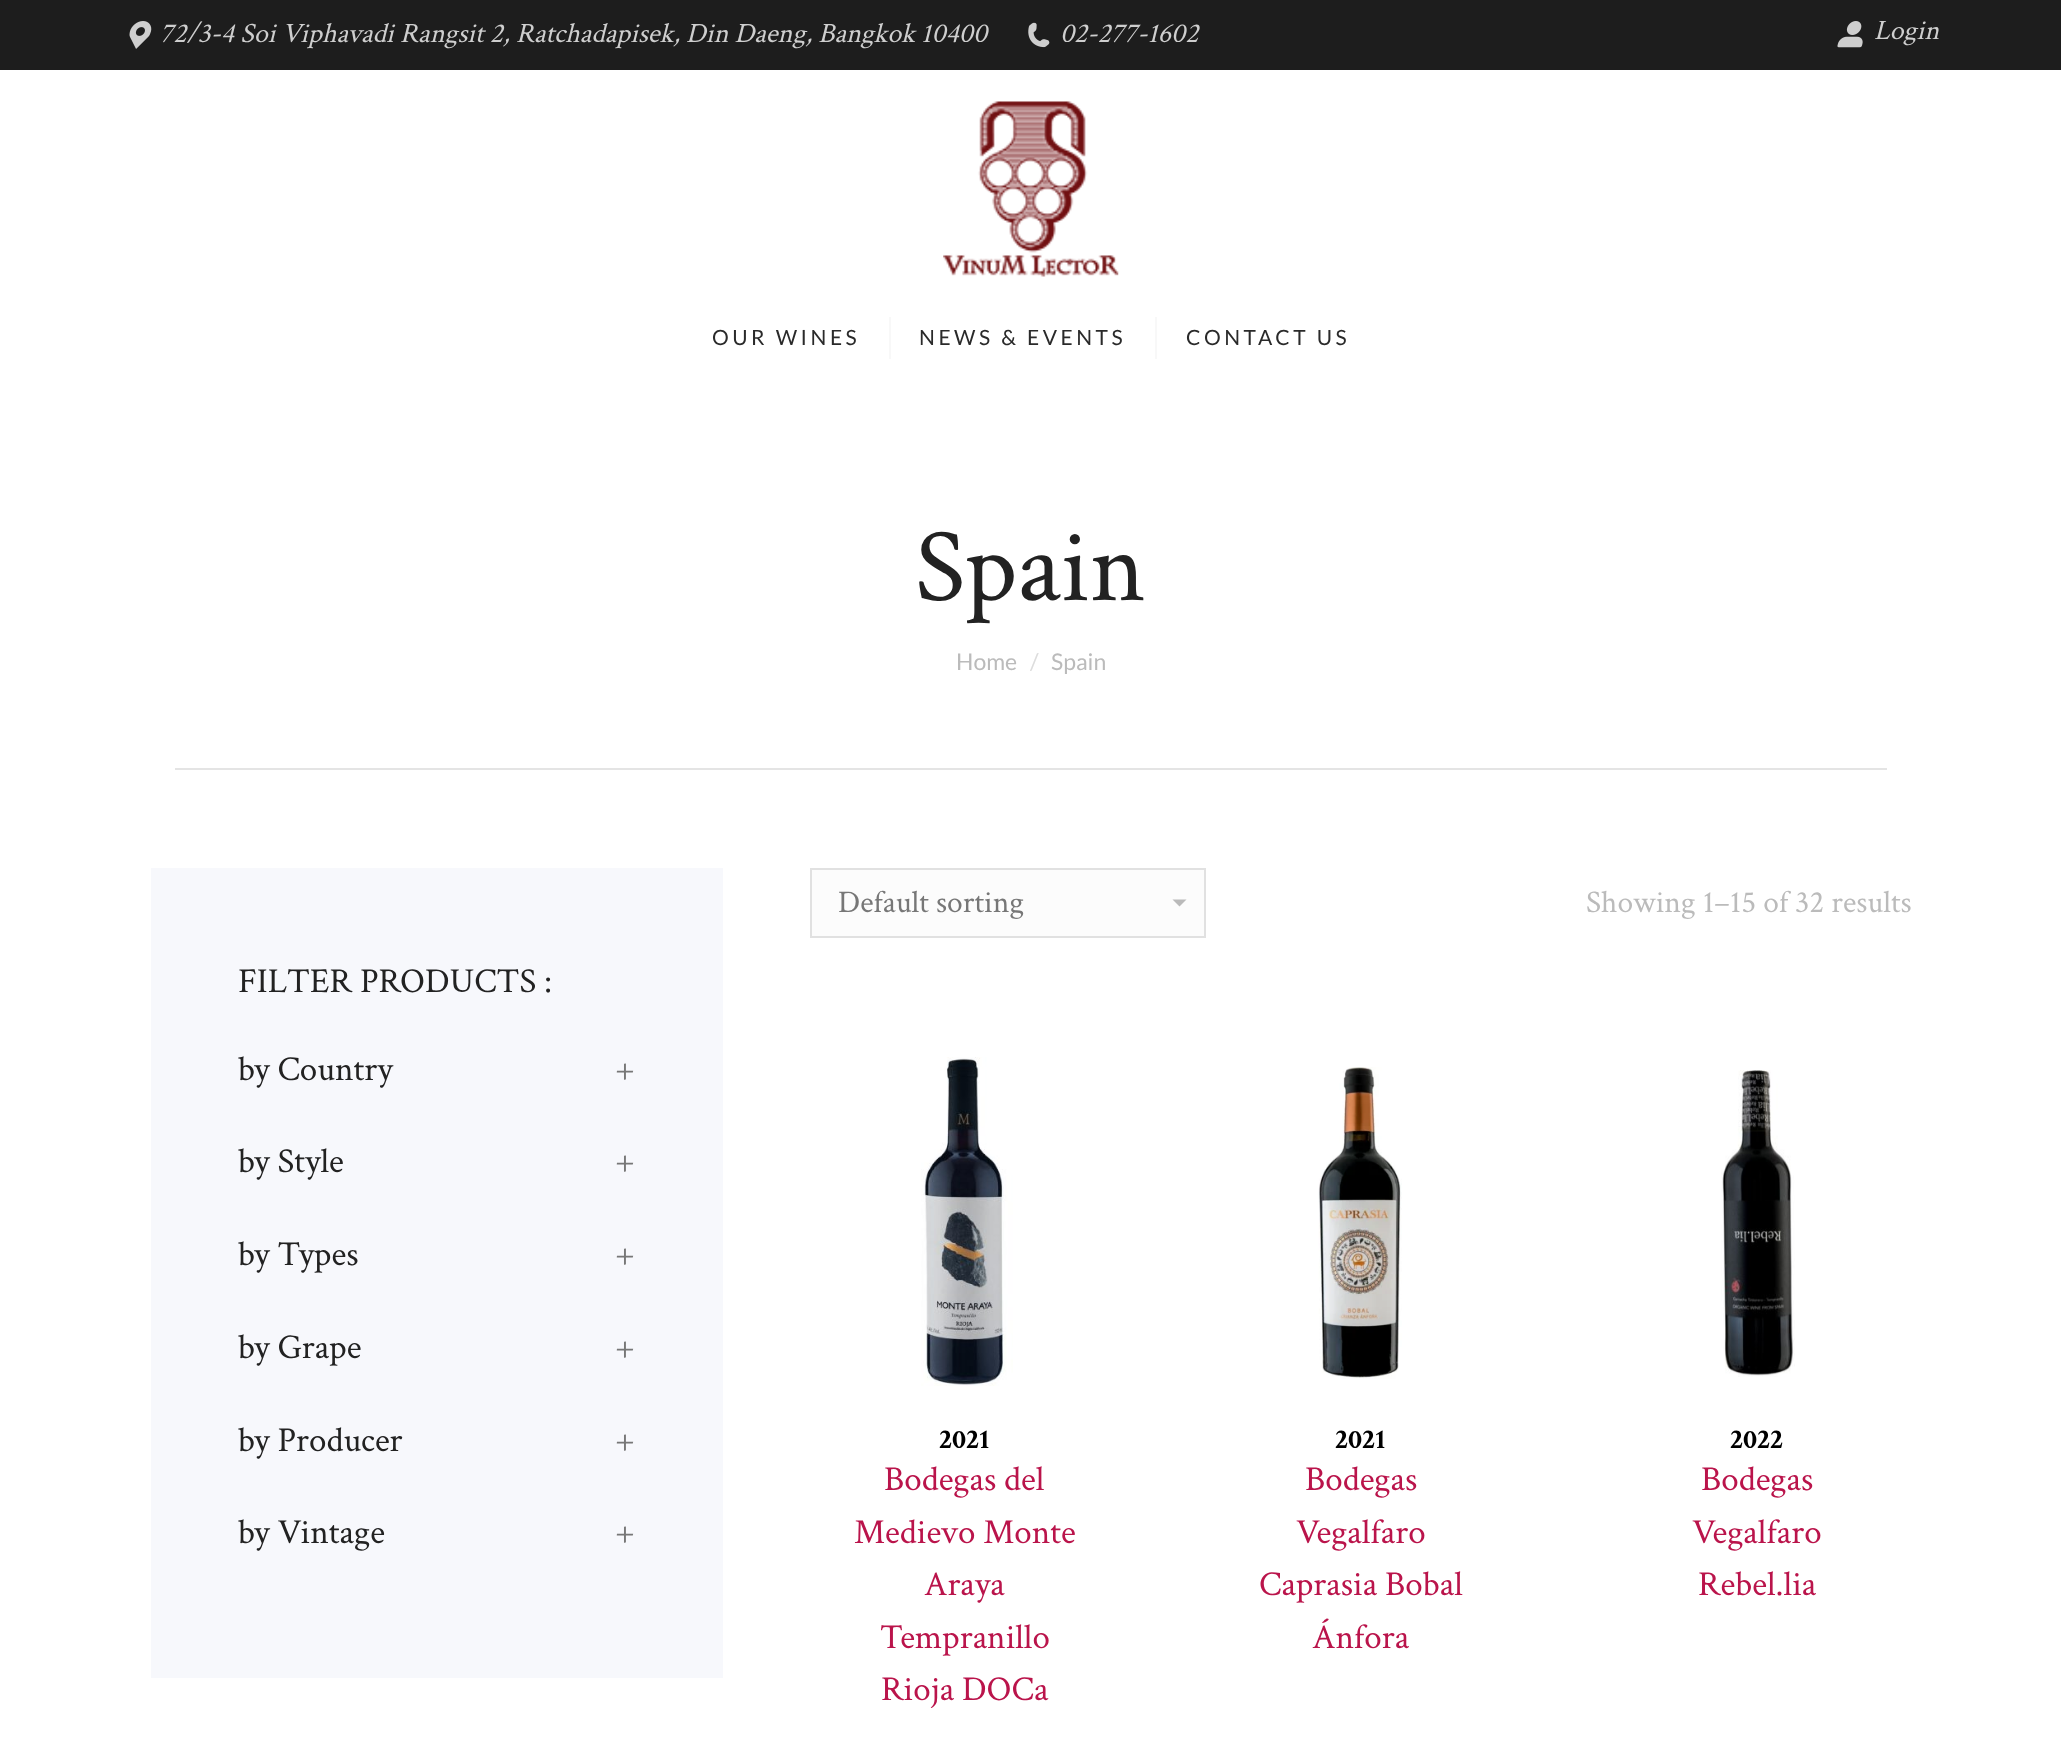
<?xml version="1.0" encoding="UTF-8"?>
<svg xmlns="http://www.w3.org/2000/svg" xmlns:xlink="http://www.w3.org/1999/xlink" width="2061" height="1764">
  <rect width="100%" height="100%" fill="#ffffff" />
  <rect width="2061" height="70" fill="#1d1d1d" />
  <image x="129" y="21" width="23" height="28" xlink:href="image1.png" />
  <image x="1028" y="22" width="22" height="26" xlink:href="image2.png" />
  <image x="1837" y="21" width="26" height="27" xlink:href="image3.png" />
  <image x="943" y="101" width="176" height="176" xlink:href="image4.png" />
  <rect x="889" y="317" width="2" height="42" fill="#f8f8f8" />
  <rect x="1155" y="317" width="2" height="42" fill="#f8f8f8" />
  <rect x="175" y="768" width="1712" height="2" fill="#e4e4e4" />
  <rect x="151" y="868" width="572" height="810" fill="#f7f8fc" />
  <rect x="812" y="870" width="392" height="66" fill="#fcfcfc" />
  <path d="M 1172.5 899.5 l 7 7 l 7 -7 z" fill="#bababa" />
  <rect x="811" y="869" width="394" height="68" fill="none" stroke="#e1e1e1" stroke-width="2" />
  <image x="921" y="1057" width="92" height="329" xlink:href="image5.png" />
  <image x="1318" y="1067" width="84" height="312" xlink:href="image6.png" />
  <image x="1721" y="1070" width="74" height="307" xlink:href="image7.png" />
  <text x="160" y="42" style="font-family: Crimson Text; font-size: 28px; font-style: italic; fill: #cecece">72/3-4 Soi Viphavadi Rangsit 2, Ratchadapisek, Din Daeng, Bangkok 10400</text>
  <text x="1060" y="42" style="font-family: Crimson Text; font-size: 28px; font-style: italic; fill: #cecece">02-277-1602</text>
  <text x="1874" y="39" style="font-family: Crimson Text; font-size: 28px; font-style: italic; fill: #cecece">Login</text>
  <text x="712" y="345" style="font-family: Lato; font-size: 21px; letter-spacing: 3.5px; fill: #2a2a2a">OUR WINES</text>
  <text x="919" y="345" style="font-family: Lato; font-size: 21px; letter-spacing: 3.5px; fill: #2a2a2a">NEWS &amp; EVENTS</text>
  <text x="1186" y="345" style="font-family: Lato; font-size: 21px; letter-spacing: 3.5px; fill: #2a2a2a">CONTACT US</text>
  <text x="915" y="600" style="font-family: Crimson Text; font-size: 105px; fill: #222222">Spain</text>
  <text x="956" y="670" style="font-family: Lato; font-size: 23px; fill: #bbbbbb">Home</text>
  <text x="1030" y="670" style="font-family: Lato; font-size: 23px; fill: #dddddd">/</text>
  <text x="1051" y="670" style="font-family: Lato; font-size: 23px; fill: #bbbbbb">Spain</text>
  <text x="238" y="992" style="font-family: Crimson Text; font-size: 35px; fill: #222222">FILTER PRODUCTS :</text>
  <text x="238" y="1080" style="font-family: Crimson Text; font-size: 35px; fill: #222222">by Country</text>
  <text x="615" y="1080" style="font-family: Crimson Text; font-size: 35px; fill: #777777">+</text>
  <text x="238" y="1172" style="font-family: Crimson Text; font-size: 35px; fill: #222222">by Style</text>
  <text x="615" y="1172" style="font-family: Crimson Text; font-size: 35px; fill: #777777">+</text>
  <text x="238" y="1265" style="font-family: Crimson Text; font-size: 35px; fill: #222222">by Types</text>
  <text x="615" y="1265" style="font-family: Crimson Text; font-size: 35px; fill: #777777">+</text>
  <text x="238" y="1358" style="font-family: Crimson Text; font-size: 35px; fill: #222222">by Grape</text>
  <text x="615" y="1358" style="font-family: Crimson Text; font-size: 35px; fill: #777777">+</text>
  <text x="238" y="1451" style="font-family: Crimson Text; font-size: 35px; fill: #222222">by Producer</text>
  <text x="615" y="1451" style="font-family: Crimson Text; font-size: 35px; fill: #777777">+</text>
  <text x="238" y="1543" style="font-family: Crimson Text; font-size: 35px; fill: #222222">by Vintage</text>
  <text x="615" y="1543" style="font-family: Crimson Text; font-size: 35px; fill: #777777">+</text>
  <text x="838" y="912" style="font-family: Crimson Text; font-size: 31.5px; fill: #777777">Default sorting</text>
  <text x="1586" y="912" style="font-family: Crimson Text; font-size: 31.5px; fill: #bbbbbb">Showing 1–15 of 32 results</text>
  <text x="939" y="1448" style="font-family: Crimson Text; font-size: 28px; font-weight: bold; fill: #000000">2021</text>
  <text x="884" y="1490" style="font-family: Crimson Text; font-size: 35px; fill: #ba144b">Bodegas del</text>
  <text x="854" y="1543" style="font-family: Crimson Text; font-size: 35px; fill: #ba144b">Medievo Monte</text>
  <text x="924" y="1595" style="font-family: Crimson Text; font-size: 35px; fill: #ba144b">Araya</text>
  <text x="880" y="1648" style="font-family: Crimson Text; font-size: 35px; fill: #ba144b">Tempranillo</text>
  <text x="881" y="1700" style="font-family: Crimson Text; font-size: 35px; fill: #ba144b">Rioja DOCa</text>
  <text x="1335" y="1448" style="font-family: Crimson Text; font-size: 28px; font-weight: bold; fill: #000000">2021</text>
  <text x="1305" y="1490" style="font-family: Crimson Text; font-size: 35px; fill: #ba144b">Bodegas</text>
  <text x="1296" y="1543" style="font-family: Crimson Text; font-size: 35px; fill: #ba144b">Vegalfaro</text>
  <text x="1259" y="1595" style="font-family: Crimson Text; font-size: 35px; fill: #ba144b">Caprasia Bobal</text>
  <text x="1312" y="1648" style="font-family: Crimson Text; font-size: 35px; fill: #ba144b">Ánfora</text>
  <text x="1730" y="1448" style="font-family: Crimson Text; font-size: 28px; font-weight: bold; fill: #000000">2022</text>
  <text x="1701" y="1490" style="font-family: Crimson Text; font-size: 35px; fill: #ba144b">Bodegas</text>
  <text x="1692" y="1543" style="font-family: Crimson Text; font-size: 35px; fill: #ba144b">Vegalfaro</text>
  <text x="1698" y="1595" style="font-family: Crimson Text; font-size: 35px; fill: #ba144b">Rebel.lia</text>
</svg>
